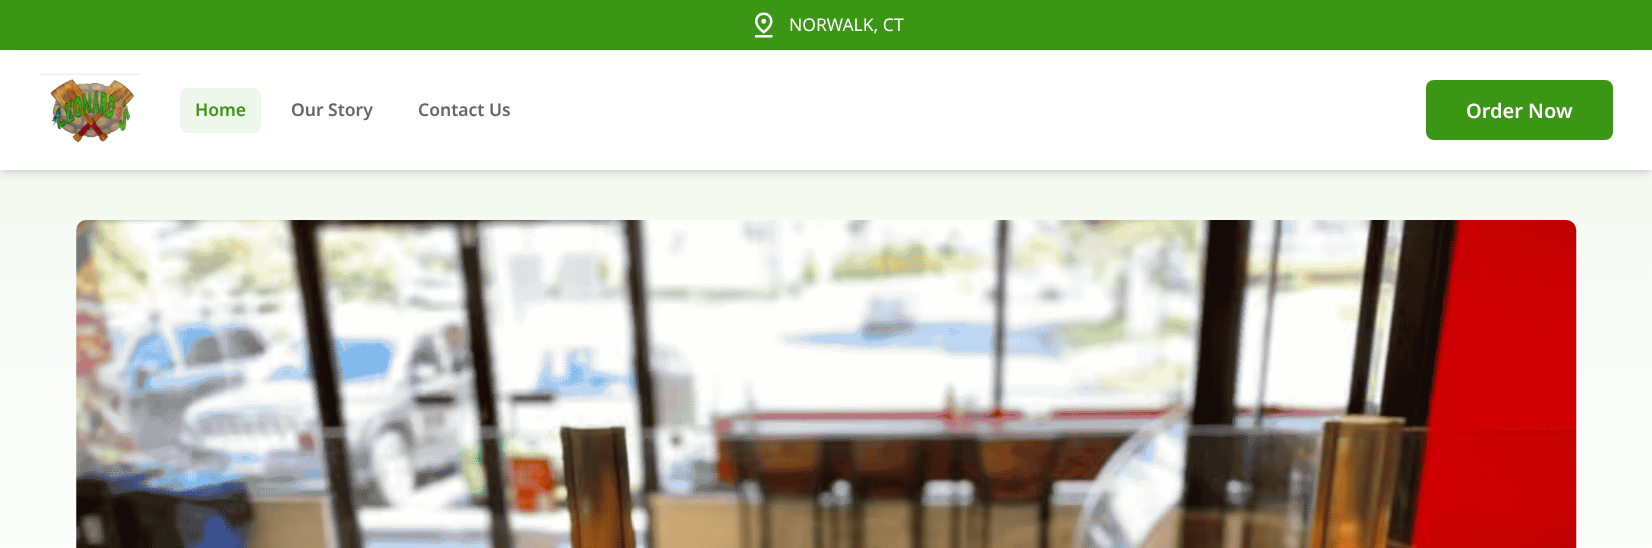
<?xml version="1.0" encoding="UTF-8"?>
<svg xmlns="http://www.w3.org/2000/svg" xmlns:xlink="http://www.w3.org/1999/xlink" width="1652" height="548">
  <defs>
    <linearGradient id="g1" gradientUnits="userSpaceOnUse" x1="826" y1="0" x2="826" y2="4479"><stop offset="0" stop-color="#f0f7ed" /><stop offset="0.15" stop-color="#ffffff" /></linearGradient>
  </defs>
  <rect width="100%" height="100%" fill="#ffffff" />
  <rect y="170" width="1652" height="378" fill="url(#g1)" />
  <rect width="1652" height="50" fill="#3c9616" />
  <image x="755" y="12" width="18" height="26" xlink:href="image1.png" />
  <rect x="3" y="55" width="1647" height="115" fill="#000000" fill-opacity="0.1" filter="blur(2.5px)" />
  <rect x="1" y="56" width="1650" height="118" fill="#000000" fill-opacity="0.1" filter="blur(4px)" />
  <rect y="50" width="1652" height="120" fill="#ffffff" />
  <image x="40" y="73" width="100" height="70" xlink:href="image2.png" />
  <rect x="180" y="88" width="81" height="45" rx="8" fill="#eff7ec" />
  <rect x="1426" y="80" width="187" height="60" rx="8" fill="#3c9616" />
  <image x="76" y="220" width="1501" height="328" xlink:href="image3.png" />
  <text x="789" y="31" style="font-family: Noto Sans; font-size: 17.5px; fill: #ffffff">NORWALK, CT</text>
  <text x="195" y="116" style="font-family: Noto Sans; font-size: 17.5px; font-weight: 600; fill: #3c9616">Home</text>
  <text x="291" y="116" style="font-family: Noto Sans; font-size: 17.5px; font-weight: 600; fill: #666666">Our Story</text>
  <text x="418" y="116" style="font-family: Noto Sans; font-size: 17.5px; font-weight: 600; fill: #666666">Contact Us</text>
  <text x="1466" y="118" style="font-family: Noto Sans; font-size: 20px; font-weight: 600; fill: #ffffff">Order Now</text>
</svg>
